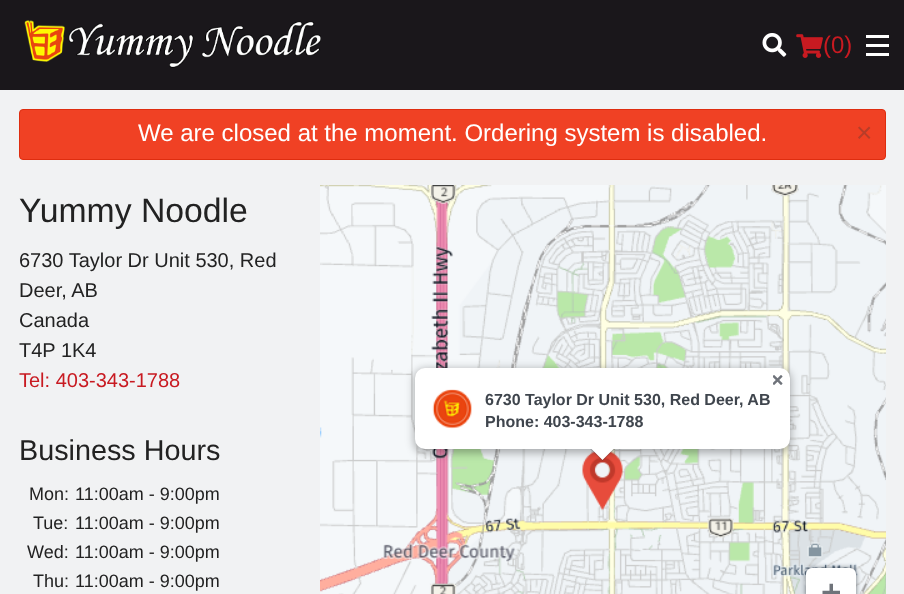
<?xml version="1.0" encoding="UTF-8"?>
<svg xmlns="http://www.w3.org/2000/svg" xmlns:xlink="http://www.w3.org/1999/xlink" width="904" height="594">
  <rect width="100%" height="100%" fill="#f1f2f3" />
  <rect width="904" height="90" fill="#1a171b" />
  <image x="24" y="20" width="297" height="48" xlink:href="image1.png" />
  <image x="762" y="33" width="25" height="24" xlink:href="image2.png" />
  <image x="796" y="34" width="27" height="24" xlink:href="image3.png" />
  <rect x="866" y="53" width="23" height="3" fill="#ffffff" />
  <rect x="866" y="44" width="23" height="3" fill="#ffffff" />
  <rect x="866" y="35" width="23" height="3" fill="#ffffff" />
  <rect x="19.5" y="109.5" width="866" height="50" rx="3.5" fill="#f04124" stroke="#de2d0f" />
  <image x="320" y="185" width="566" height="409" xlink:href="image4.png" />
  <rect x="414" y="369" width="377" height="84" rx="11" fill="#000000" fill-opacity="0.3" filter="blur(4.5px)" />
  <rect x="415" y="368" width="375" height="81" rx="10" fill="#ffffff" />
  <image x="773" y="375" width="10" height="10" xlink:href="image5.png" />
  <image x="432" y="389" width="40" height="40" xlink:href="image6.png" />
  <path d="M 590 449 h 25 l -12.5 12 z" fill="#0f1621" fill-opacity="0.2" />
  <path d="M 590 447.5 h 25 l -12.5 12.5 z" fill="#ffffff" />
  <rect x="806" y="568" width="50" height="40" rx="6" fill="#0f1621" fill-opacity="0.6" filter="blur(2.5px)" />
  <rect x="806" y="568" width="50" height="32" rx="6" fill="#ffffff" />
  <image x="822" y="583" width="18" height="11" xlink:href="image7.png" />
  <text x="823" y="53" style="font-family: Liberation Sans; font-size: 24px; fill: #c81a21">(0)</text>
  <text x="138" y="141" style="font-family: Liberation Sans; font-size: 24px; fill: #ffffff">We are closed at the moment. Ordering system is disabled.</text>
  <text x="856" y="142" style="font-family: Liberation Sans; font-size: 28px; fill: #b73d29">×</text>
  <text x="19" y="222" style="font-family: Liberation Sans; font-size: 33.75px; fill: #222222">Yummy Noodle</text>
  <text x="19" y="267" style="font-family: Liberation Sans; font-size: 20px; fill: #222222">6730 Taylor Dr Unit 530, Red</text>
  <text x="19" y="297" style="font-family: Liberation Sans; font-size: 20px; fill: #222222">Deer, AB</text>
  <text x="19" y="327" style="font-family: Liberation Sans; font-size: 20px; fill: #222222">Canada</text>
  <text x="19" y="357" style="font-family: Liberation Sans; font-size: 20px; fill: #222222">T4P 1K4</text>
  <text x="19" y="387" style="font-family: Liberation Sans; font-size: 20px; fill: #c81a21">Tel: 403-343-1788</text>
  <text x="19" y="460" style="font-family: Liberation Sans; font-size: 28.75px; fill: #222222">Business Hours</text>
  <text x="29" y="500" style="font-family: Liberation Sans; font-size: 18px; fill: #222222">Mon:</text>
  <text x="75" y="500" style="font-family: Liberation Sans; font-size: 18px; fill: #222222">11:00am - 9:00pm</text>
  <text x="33" y="529" style="font-family: Liberation Sans; font-size: 18px; fill: #222222">Tue:</text>
  <text x="75" y="529" style="font-family: Liberation Sans; font-size: 18px; fill: #222222">11:00am - 9:00pm</text>
  <text x="27" y="558" style="font-family: Liberation Sans; font-size: 18px; fill: #222222">Wed:</text>
  <text x="75" y="558" style="font-family: Liberation Sans; font-size: 18px; fill: #222222">11:00am - 9:00pm</text>
  <text x="33" y="587" style="font-family: Liberation Sans; font-size: 18px; fill: #222222">Thu:</text>
  <text x="75" y="587" style="font-family: Liberation Sans; font-size: 18px; fill: #222222">11:00am - 9:00pm</text>
  <text x="485" y="405" style="font-family: Liberation Sans; font-size: 16px; font-weight: bold; fill: #3f454d">6730 Taylor Dr Unit 530, Red Deer, AB</text>
  <text x="485" y="427" style="font-family: Liberation Sans; font-size: 16px; font-weight: bold; fill: #3f454d">Phone: 403-343-1788</text>
</svg>
